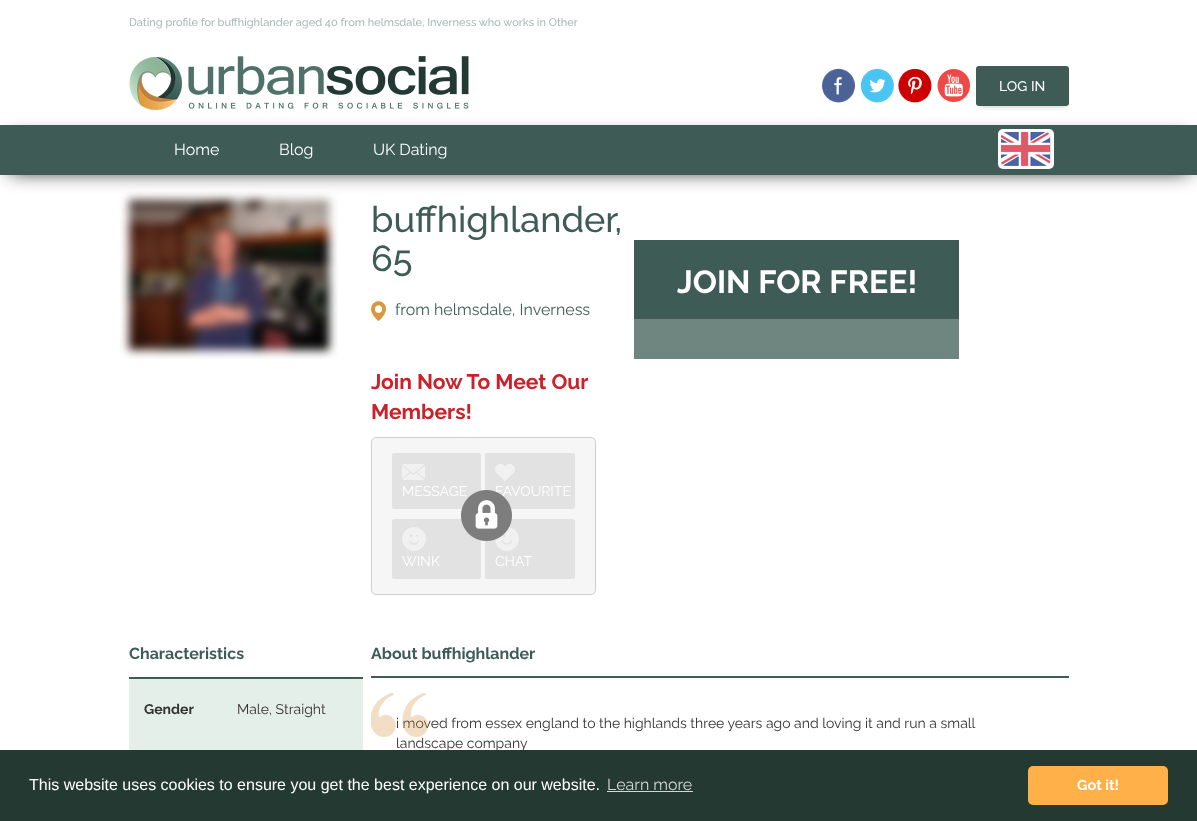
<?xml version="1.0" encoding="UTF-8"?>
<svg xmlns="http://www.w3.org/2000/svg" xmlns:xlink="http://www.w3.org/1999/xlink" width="1197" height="821">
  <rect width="100%" height="100%" fill="#ffffff" />
  <image x="129" y="56" width="340" height="54" xlink:href="image1.png" />
  <image x="822" y="68" width="33" height="35" xlink:href="image2.png" />
  <image x="860" y="68" width="34" height="35" xlink:href="image3.png" />
  <image x="898" y="68" width="34" height="35" xlink:href="image4.png" />
  <image x="937" y="69" width="33" height="33" xlink:href="image5.png" />
  <rect x="981" y="75" width="85" height="32" fill="#cccccc" filter="blur(2px)" />
  <rect x="976" y="66" width="93" height="40" rx="3" fill="#3e5c55" />
  <rect x="10" y="139" width="1179" height="32" fill="#000000" filter="blur(10px)" />
  <rect y="125" width="1197" height="50" fill="#3e5c55" />
  <rect x="998" y="129" width="56" height="40" rx="5" fill="#ffffff" />
  <image x="1001" y="132" width="50" height="34" xlink:href="image6.png" />
  <image x="120" y="191" width="218" height="168" xlink:href="image7.png" />
  <image x="371" y="301" width="15" height="20" xlink:href="image8.png" />
  <rect x="371.5" y="437.5" width="224" height="157" rx="4.5" fill="#f6f6f6" stroke="#cecece" />
  <rect x="392" y="453" width="89" height="56" rx="2" fill="#e2e2e2" />
  <image x="402" y="464" width="23" height="16" xlink:href="image9.png" />
  <rect x="485" y="453" width="90" height="56" rx="2" fill="#e2e2e2" />
  <image x="495" y="464" width="20" height="17" xlink:href="image11.png" />
  <rect x="392" y="519" width="89" height="60" rx="2" fill="#e2e2e2" />
  <image x="402" y="527" width="24" height="24" xlink:href="image12.png" />
  <rect x="485" y="519" width="90" height="60" rx="2" fill="#e2e2e2" />
  <image x="495" y="527" width="24" height="24" xlink:href="image12.png" />
  <rect x="634" y="319" width="325" height="40" fill="#6e8580" />
  <rect x="634" y="240" width="325" height="79" fill="#3e5c55" />
  <rect x="129" y="679" width="234" height="71" fill="#e5efe9" />
  <rect x="129" y="677" width="234" height="2" fill="#3e5c55" />
  <rect x="371" y="676" width="698" height="2" fill="#3e5c55" />
  <text x="129" y="26" style="font-family: Raleway; font-size: 11px; font-weight: 500; fill: #a9b7b6">Dating profile for buffhighlander aged 40 from helmsdale, Inverness who works in Other</text>
  <text x="999" y="91" style="font-family: Raleway; font-size: 14px; font-weight: 500; fill: #ffffff">LOG IN</text>
  <text x="174" y="155" style="font-family: Raleway; font-size: 16px; fill: #ffffff">Home</text>
  <text x="279" y="155" style="font-family: Raleway; font-size: 16px; fill: #ffffff">Blog</text>
  <text x="373" y="155" style="font-family: Raleway; font-size: 16px; fill: #ffffff">UK Dating</text>
  <text x="371" y="232" style="font-family: Raleway; font-size: 36px; font-weight: 500; fill: #3e5c55">buffhighlander,</text>
  <text x="371" y="271" style="font-family: Raleway; font-size: 36px; font-weight: 500; fill: #3e5c55">65</text>
  <text x="395" y="315" style="font-family: Raleway; font-size: 16px; fill: #3e5c55">from helmsdale, Inverness</text>
  <text x="371" y="389" style="font-family: Raleway; font-size: 21px; font-weight: bold; fill: #c9222a">Join Now To Meet Our</text>
  <text x="371" y="419" style="font-family: Raleway; font-size: 21px; font-weight: bold; fill: #c9222a">Members!</text>
  <text x="402" y="496" style="font-family: Raleway; font-size: 14px; fill: #ffffff">MESSAGE</text>
  <text x="495" y="496" style="font-family: Raleway; font-size: 14px; fill: #ffffff">FAVOURITE</text>
  <image x="461" y="490" width="51" height="51" xlink:href="image10.png" />
  <text x="402" y="566" style="font-family: Raleway; font-size: 14px; fill: #ffffff">WINK</text>
  <text x="495" y="566" style="font-family: Raleway; font-size: 14px; fill: #ffffff">CHAT</text>
  <text x="677" y="293" style="font-family: Raleway; font-size: 32px; font-weight: bold; fill: #ffffff">JOIN FOR FREE!</text>
  <text x="129" y="659" style="font-family: Raleway; font-size: 16px; font-weight: bold; fill: #3e5c55">Characteristics</text>
  <text x="144" y="714" style="font-family: Raleway; font-size: 14px; font-weight: bold; fill: #333333">Gender</text>
  <text x="237" y="714" style="font-family: Raleway; font-size: 14px; fill: #333333">Male, Straight</text>
  <text x="371" y="659" style="font-family: Raleway; font-size: 16px; font-weight: bold; fill: #3e5c55">About buffhighlander</text>
  <text x="396" y="728" style="font-family: Raleway; font-size: 14px; fill: #333333">i moved from essex england to the highlands three years ago and loving it and run a small</text>
  <image x="371" y="693" width="57" height="44" xlink:href="image13.png" />
  <text x="396" y="748" style="font-family: Raleway; font-size: 14px; fill: #333333">landscape company</text>
  <rect y="750" width="1197" height="71" fill="#253933" />
  <text x="29" y="790" style="font-family: Liberation Sans; font-size: 16px; fill: #ffffff">This website uses cookies to ensure you get the best experience on our website.</text>
  <text x="607" y="790" style="font-family: Raleway; font-size: 16px; fill: #d3d7d6">Learn more</text>
  <rect x="607" y="791" width="86" height="1" fill="#d3d7d6" />
  <rect x="1028" y="766" width="140" height="39" rx="5" fill="#ffb049" />
  <text x="1077" y="790" style="font-family: Raleway; font-size: 14.5px; font-weight: bold; fill: #ffffff">Got it!</text>
</svg>
